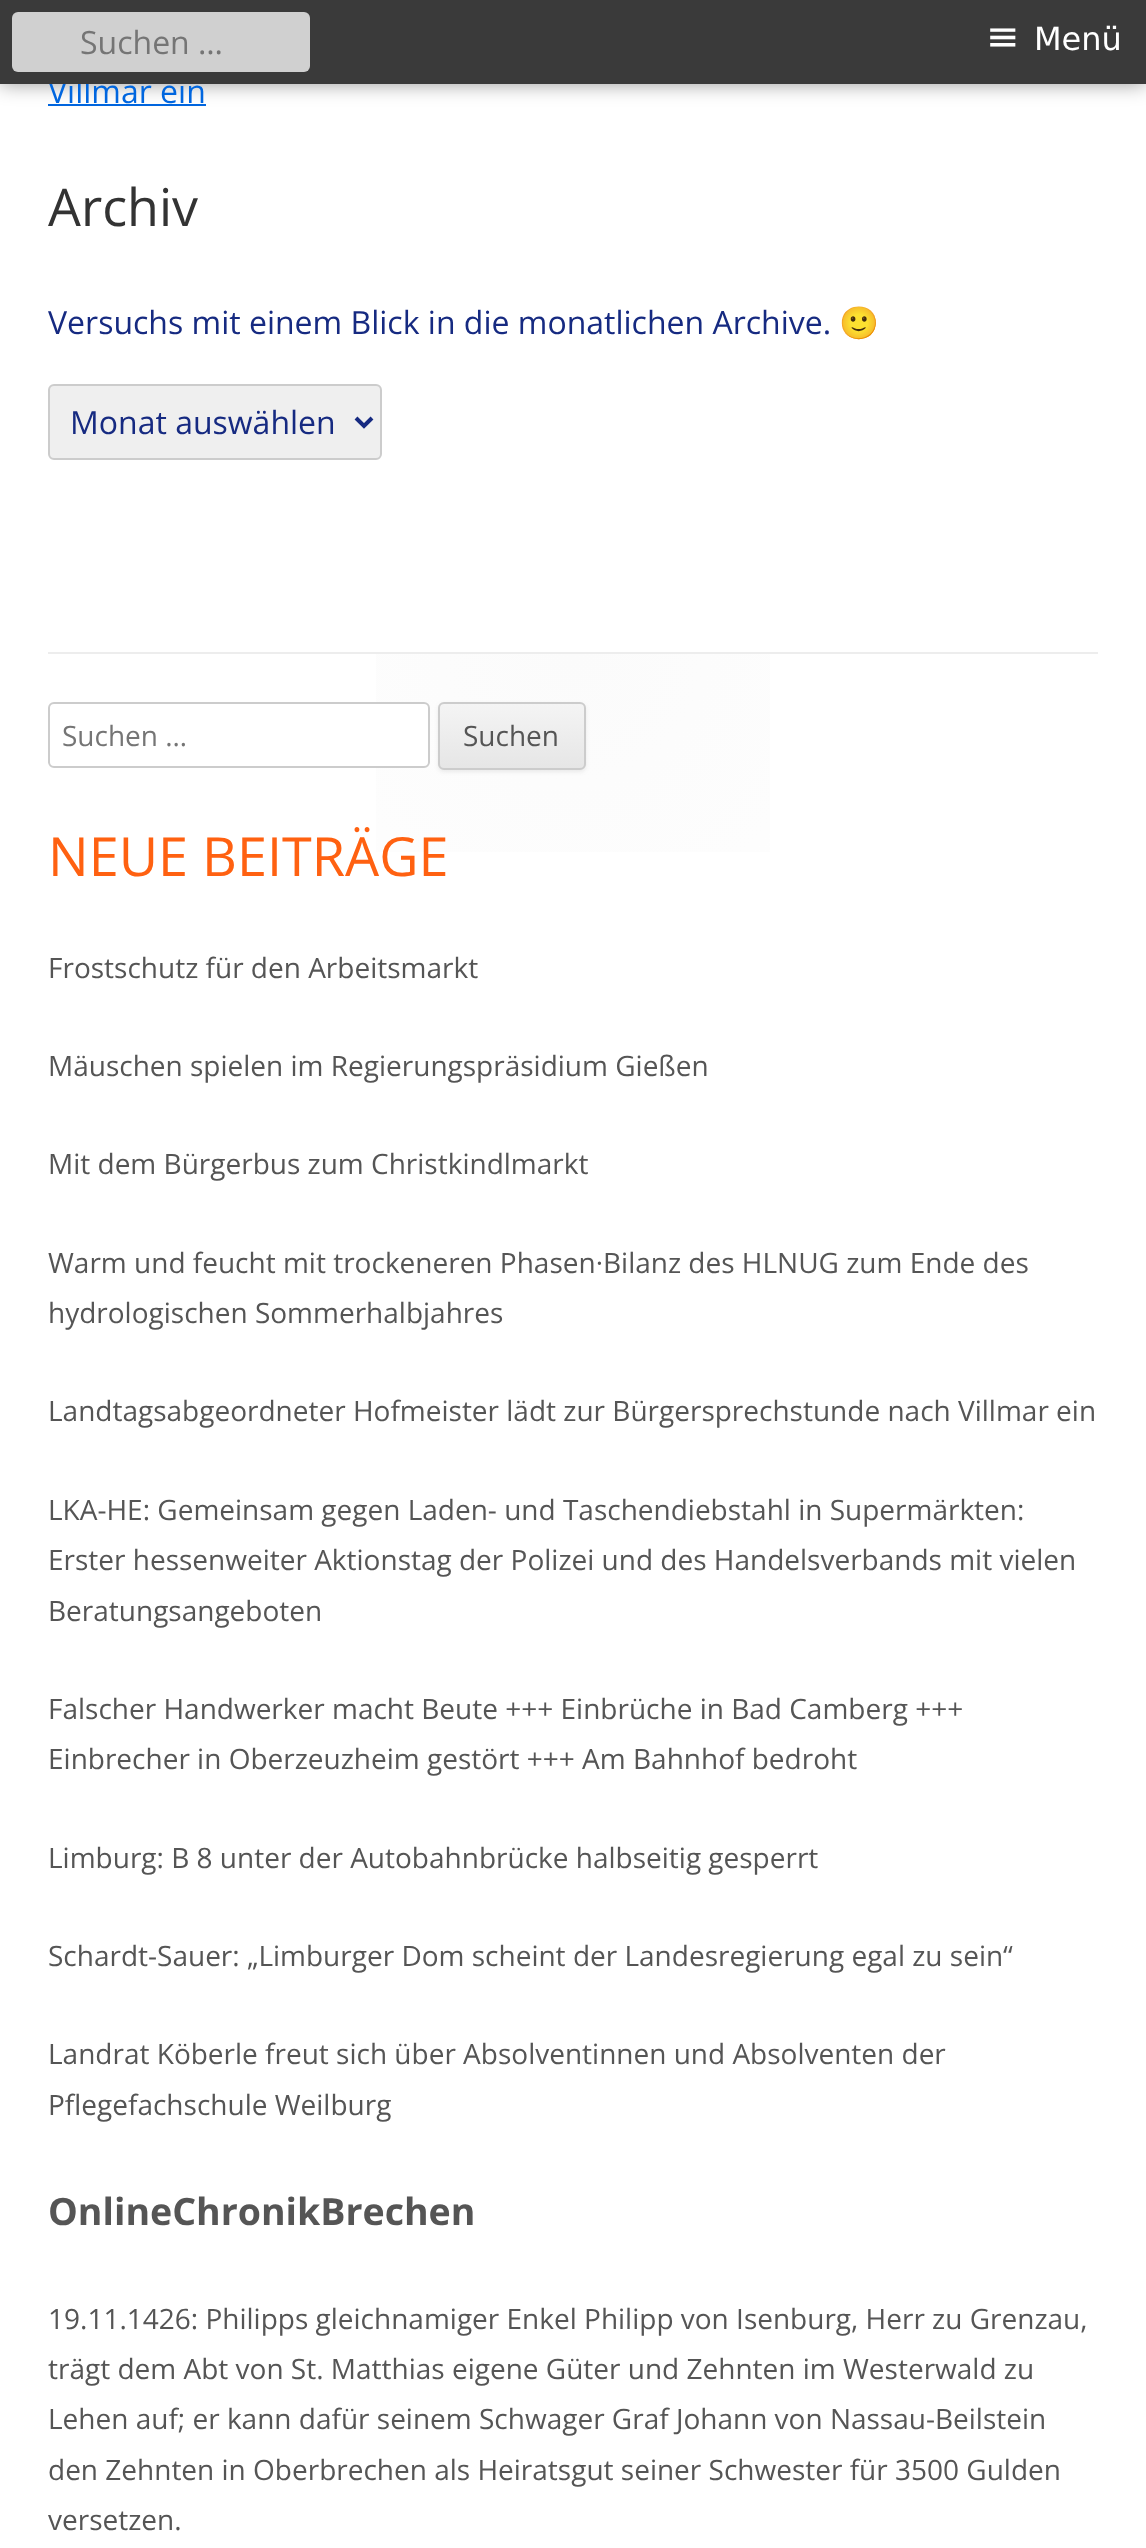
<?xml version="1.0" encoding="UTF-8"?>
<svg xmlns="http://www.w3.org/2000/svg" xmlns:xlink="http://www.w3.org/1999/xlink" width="1146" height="2548">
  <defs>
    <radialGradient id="g1" gradientUnits="userSpaceOnUse" cx="573" cy="654" r="525"><stop offset="0" stop-color="#fbfbfb" /><stop offset="1" stop-color="#ffffff" /></radialGradient>
    <clipPath id="clip1"><rect x="438" y="702" width="148" height="68" rx="6" /></clipPath>
    <linearGradient id="g2" gradientUnits="userSpaceOnUse" x1="512" y1="704" x2="512" y2="768"><stop offset="0" stop-color="#f4f4f4" /><stop offset="1" stop-color="#e6e6e6" /></linearGradient>
  </defs>
  <rect width="100%" height="100%" fill="#ffffff" />
  <rect x="48" y="104" width="158" height="2" fill="#0066df" />
  <rect width="1146" height="84" fill="#000000" fill-opacity="0.4" filter="blur(10px)" />
  <rect x="49" y="385" width="332" height="74" rx="5" fill="#efefef" stroke="#cccccc" stroke-width="2" />
  <path d="M 356 418 l 8 8 l 8 -8" fill="none" stroke="#162a81" stroke-width="4" />
  <rect x="376" y="654" width="394" height="198" fill="url(#g1)" />
  <rect x="48" y="652" width="1050" height="2" fill="#ededed" />
  <rect x="49" y="703" width="380" height="64" rx="5" fill="#ffffff" stroke="#cccccc" stroke-width="2" />
  <rect x="438" y="704" width="148" height="68" rx="6" fill="#404040" fill-opacity="0.1" filter="blur(2px)" />
  <g clip-path="url(#clip1)">
    <rect x="438" y="704" width="148" height="64" fill="url(#g2)" />
  </g>
  <rect x="439" y="703" width="146" height="66" rx="5" fill="none" stroke="#cccccc" stroke-width="2" />
  <text x="48" y="103" style="font-family: Open Sans; font-size: 32px; fill: #0066df">Villmar ein</text>
  <rect width="1146" height="84" fill="#3a3a3a" />
  <rect x="12" y="12" width="298" height="60" rx="6" fill="#d0d0d0" />
  <text x="80" y="54" style="font-family: Open Sans; font-size: 32px; fill: #757575">Suchen …</text>
  <text x="1034" y="50" style="font-family: DejaVu Sans; font-size: 32px; fill: #ffffff">Menü</text>
  <text x="986" y="50" style="font-family: DejaVu Sans; font-size: 40px; fill: #ffffff">≡</text>
  <text x="48" y="226" style="font-family: Open Sans; font-size: 52px; fill: #333333">Archiv</text>
  <text x="48" y="334" style="font-family: Open Sans; font-size: 32px; fill: #162a81">Versuchs mit einem Blick in die monatlichen Archive.</text>
  <text x="839" y="334" style="font-family: Noto Color Emoji; font-size: 32px; fill: #162a81">🙂</text>
  <text x="70" y="434" style="font-family: Open Sans; font-size: 32px; fill: #162a81">Monat auswählen</text>
  <text x="62" y="746" style="font-family: Open Sans; font-size: 28px; fill: #757575">Suchen …</text>
  <text x="463" y="746" style="font-family: Open Sans; font-size: 28px; fill: #555555">Suchen</text>
  <text x="48" y="876" style="font-family: Open Sans; font-size: 54px; fill: #ff6111">NEUE BEITRÄGE</text>
  <text x="48" y="978" style="font-family: Open Sans; font-size: 28px; fill: #555555">Frostschutz für den Arbeitsmarkt</text>
  <text x="48" y="1076" style="font-family: Open Sans; font-size: 28px; fill: #555555">Mäuschen spielen im Regierungspräsidium Gießen</text>
  <text x="48" y="1174" style="font-family: Open Sans; font-size: 28px; fill: #555555">Mit dem Bürgerbus zum Christkindlmarkt</text>
  <text x="48" y="1273" style="font-family: Open Sans; font-size: 28px; fill: #555555">Warm und feucht mit trockeneren Phasen·Bilanz des HLNUG zum Ende des</text>
  <text x="48" y="1323" style="font-family: Open Sans; font-size: 28px; fill: #555555">hydrologischen Sommerhalbjahres</text>
  <text x="48" y="1421" style="font-family: Open Sans; font-size: 28px; fill: #555555">Landtagsabgeordneter Hofmeister lädt zur Bürgersprechstunde nach Villmar ein</text>
  <text x="48" y="1520" style="font-family: Open Sans; font-size: 28px; fill: #555555">LKA-HE: Gemeinsam gegen Laden- und Taschendiebstahl in Supermärkten:</text>
  <text x="48" y="1570" style="font-family: Open Sans; font-size: 28px; fill: #555555">Erster hessenweiter Aktionstag der Polizei und des Handelsverbands mit vielen</text>
  <text x="48" y="1621" style="font-family: Open Sans; font-size: 28px; fill: #555555">Beratungsangeboten</text>
  <text x="48" y="1719" style="font-family: Open Sans; font-size: 28px; fill: #555555">Falscher Handwerker macht Beute +++ Einbrüche in Bad Camberg +++</text>
  <text x="48" y="1769" style="font-family: Open Sans; font-size: 28px; fill: #555555">Einbrecher in Oberzeuzheim gestört +++ Am Bahnhof bedroht</text>
  <text x="48" y="1868" style="font-family: Open Sans; font-size: 28px; fill: #555555">Limburg: B 8 unter der Autobahnbrücke halbseitig gesperrt</text>
  <text x="48" y="1966" style="font-family: Open Sans; font-size: 28px; fill: #555555">Schardt-Sauer: „Limburger Dom scheint der Landesregierung egal zu sein“</text>
  <text x="48" y="2064" style="font-family: Open Sans; font-size: 28px; fill: #555555">Landrat Köberle freut sich über Absolventinnen und Absolventen der</text>
  <text x="48" y="2115" style="font-family: Open Sans; font-size: 28px; fill: #555555">Pflegefachschule Weilburg</text>
  <text x="48" y="2225" style="font-family: Open Sans; font-size: 37.5px; font-weight: bold; fill: #555555">OnlineChronikBrechen</text>
  <text x="48" y="2329" style="font-family: Open Sans; font-size: 28px; fill: #555555">19.11.1426: Philipps gleichnamiger Enkel Philipp von Isenburg, Herr zu Grenzau,</text>
  <text x="48" y="2379" style="font-family: Open Sans; font-size: 28px; fill: #555555">trägt dem Abt von St. Matthias eigene Güter und Zehnten im Westerwald zu</text>
  <text x="48" y="2429" style="font-family: Open Sans; font-size: 28px; fill: #555555">Lehen auf; er kann dafür seinem Schwager Graf Johann von Nassau-Beilstein</text>
  <text x="48" y="2480" style="font-family: Open Sans; font-size: 28px; fill: #555555">den Zehnten in Oberbrechen als Heiratsgut seiner Schwester für 3500 Gulden</text>
  <text x="48" y="2530" style="font-family: Open Sans; font-size: 28px; fill: #555555">versetzen.</text>
</svg>
